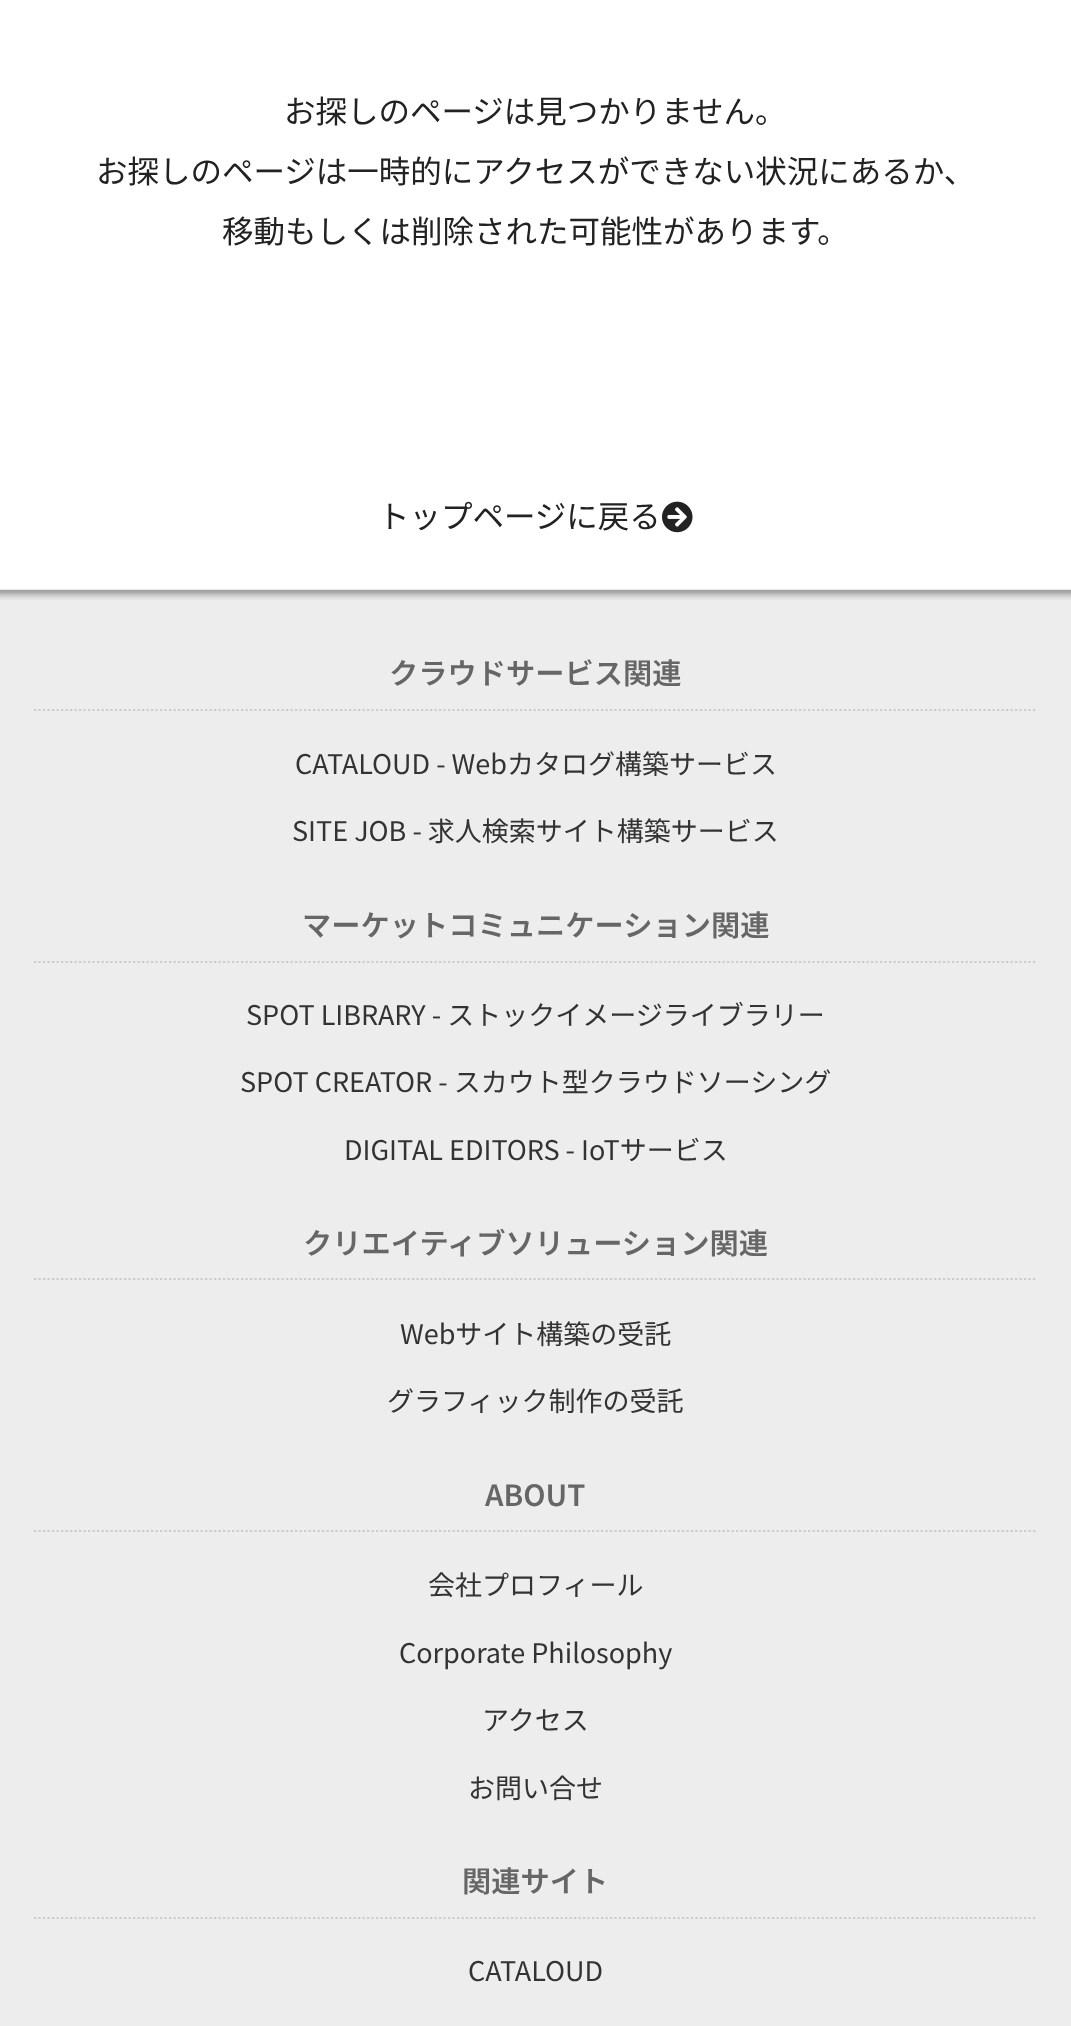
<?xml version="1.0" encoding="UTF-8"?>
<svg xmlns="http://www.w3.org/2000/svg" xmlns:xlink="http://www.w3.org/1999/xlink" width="1071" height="2026">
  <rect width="100%" height="100%" fill="#ffffff" />
  <image x="662" y="501" width="31" height="32" xlink:href="image1.png" />
  <rect y="600" width="1071" height="1426" fill="#ededed" />
  <image x="0" y="589" width="1071" height="11" xlink:href="image2.png" />
  <path d="M 34 710 h 1003" fill="none" stroke="#cccccc" stroke-width="2.2" stroke-dasharray="2.25 2.25" />
  <path d="M 34 962 h 1003" fill="none" stroke="#cccccc" stroke-width="2.2" stroke-dasharray="2.25 2.25" />
  <path d="M 34 1279 h 1003" fill="none" stroke="#cccccc" stroke-width="2.2" stroke-dasharray="2.25 2.25" />
  <path d="M 34 1531 h 1003" fill="none" stroke="#cccccc" stroke-width="2.2" stroke-dasharray="2.25 2.25" />
  <path d="M 34 1918 h 1003" fill="none" stroke="#cccccc" stroke-width="2.2" stroke-dasharray="2.25 2.25" />
  <text x="284" y="123" style="font-family: Noto Sans JP; font-size: 31.5px; fill: #222222">お探しのページは見つかりません。</text>
  <text x="96" y="183" style="font-family: Noto Sans JP; font-size: 31.5px; fill: #222222">お探しのページは一時的にアクセスができない状況にあるか、</text>
  <text x="222" y="243" style="font-family: Noto Sans JP; font-size: 31.5px; fill: #222222">移動もしくは削除された可能性があります。</text>
  <text x="378" y="528" style="font-family: Noto Sans JP; font-size: 31.5px; fill: #222222">トップページに戻る</text>
  <text x="389" y="684" style="font-family: Noto Sans JP; font-size: 29.25px; font-weight: 600; fill: #666666">クラウドサービス関連</text>
  <text x="295" y="774" style="font-family: Noto Sans JP; font-size: 27px; fill: #333333">CATALOUD - Webカタログ構築サービス</text>
  <text x="292" y="841" style="font-family: Noto Sans JP; font-size: 27px; fill: #333333">SITE JOB - 求人検索サイト構築サービス</text>
  <text x="302" y="936" style="font-family: Noto Sans JP; font-size: 29.25px; font-weight: 600; fill: #666666">マーケットコミュニケーション関連</text>
  <text x="246" y="1025" style="font-family: Noto Sans JP; font-size: 27px; fill: #333333">SPOT LIBRARY - ストックイメージライブラリー</text>
  <text x="240" y="1092" style="font-family: Noto Sans JP; font-size: 27px; fill: #333333">SPOT CREATOR - スカウト型クラウドソーシング</text>
  <text x="344" y="1160" style="font-family: Noto Sans JP; font-size: 27px; fill: #333333">DIGITAL EDITORS - IoTサービス</text>
  <text x="303" y="1254" style="font-family: Noto Sans JP; font-size: 29.25px; font-weight: 600; fill: #666666">クリエイティブソリューション関連</text>
  <text x="400" y="1344" style="font-family: Noto Sans JP; font-size: 27px; fill: #333333">Webサイト構築の受託</text>
  <text x="387" y="1411" style="font-family: Noto Sans JP; font-size: 27px; fill: #333333">グラフィック制作の受託</text>
  <text x="485" y="1506" style="font-family: Noto Sans JP; font-size: 29.25px; font-weight: 600; fill: #666666">ABOUT</text>
  <text x="428" y="1595" style="font-family: Noto Sans JP; font-size: 27px; fill: #333333">会社プロフィール</text>
  <text x="399" y="1663" style="font-family: Noto Sans JP; font-size: 27px; fill: #333333">Corporate Philosophy</text>
  <text x="482" y="1730" style="font-family: Noto Sans JP; font-size: 27px; fill: #333333">アクセス</text>
  <text x="468" y="1798" style="font-family: Noto Sans JP; font-size: 27px; fill: #333333">お問い合せ</text>
  <text x="462" y="1892" style="font-family: Noto Sans JP; font-size: 29.25px; font-weight: 600; fill: #666666">関連サイト</text>
  <text x="468" y="1981" style="font-family: Noto Sans JP; font-size: 27px; fill: #333333">CATALOUD</text>
</svg>
